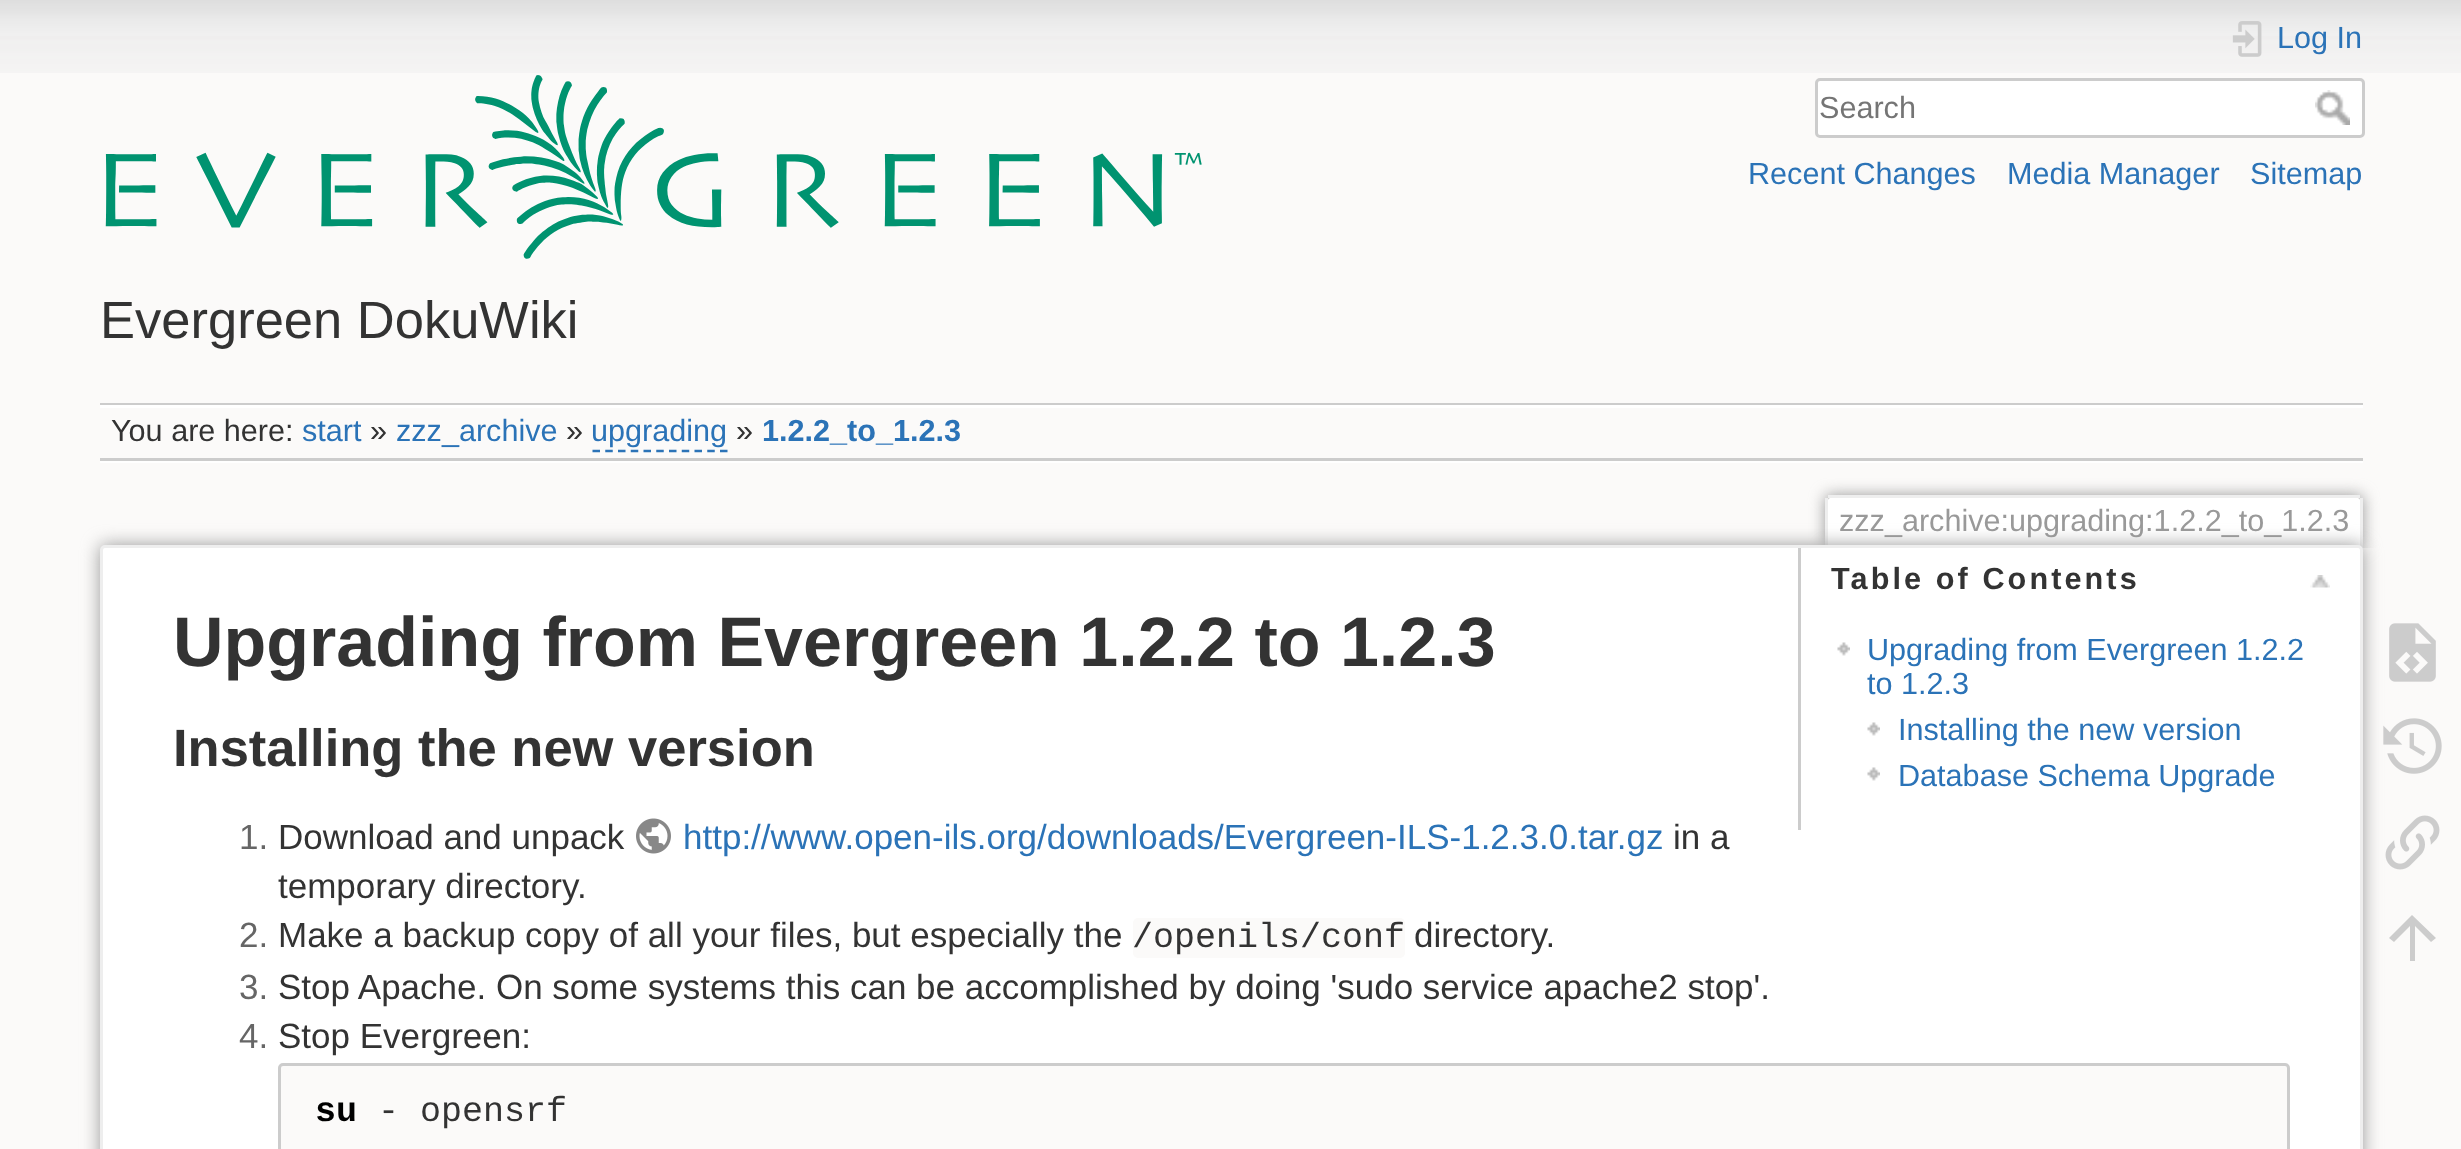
<?xml version="1.0" encoding="UTF-8"?>
<svg xmlns="http://www.w3.org/2000/svg" xmlns:xlink="http://www.w3.org/1999/xlink" width="2461" height="1149">
  <defs>
    <clipPath id="clip1"><rect x="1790" y="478" width="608" height="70" /></clipPath>
  </defs>
  <rect width="100%" height="100%" fill="#fbfaf9" />
  <image x="0" y="0" width="2461" height="73" xlink:href="image1.png" />
  <image x="2232" y="21" width="30" height="36" xlink:href="image2.png" />
  <rect x="1816.5" y="79.5" width="547" height="57" rx="3.5" fill="#ffffff" stroke="#cccccc" stroke-width="3" />
  <image x="2315" y="90" width="35" height="35" xlink:href="image3.png" />
  <image x="105" y="75" width="1097" height="184" xlink:href="image4.png" />
  <rect x="100" y="403" width="2263" height="2" fill="#cccccc" />
  <rect x="100" y="461" width="2263" height="2" fill="#ffffff" />
  <rect x="100" y="405" width="2263" height="3" fill="#ffffff" />
  <rect x="100" y="458" width="2263" height="3" fill="#cccccc" />
  <path d="M 592.5 451 h 135" fill="none" stroke="#2b73b7" stroke-width="2.5" stroke-dasharray="7.5 5.25" />
  <g clip-path="url(#clip1)">
    <rect x="1825" y="495" width="538" height="53" rx="5" fill="#999999" filter="blur(7.5px)" />
  </g>
  <path d="M 1830.5 498 h 527 c 1.5 0 2.5 1 2.5 2.5 v 47.5 h -532 v -47.5 c 0 -1.5 1 -2.5 2.5 -2.5 z" fill="#ffffff" />
  <rect x="1828" y="495" width="532" height="3" fill="#eeeeee" />
  <rect x="2360" y="498" width="3" height="50" fill="#eeeeee" />
  <rect x="1825" y="498" width="3" height="50" fill="#eeeeee" />
  <rect x="100" y="545" width="2263" height="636" rx="5" fill="#999999" filter="blur(9px)" />
  <rect x="101.5" y="546.5" width="2260" height="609" rx="3.5" fill="#ffffff" stroke="#eeeeee" stroke-width="3" />
  <rect x="1798" y="548" width="3" height="282" fill="#cccccc" />
  <image x="2310" y="575" width="20" height="13" xlink:href="image5.png" />
  <image x="1837" y="642" width="13" height="14" xlink:href="image6.png" />
  <image x="1867" y="722" width="13" height="14" xlink:href="image7.png" />
  <image x="1867" y="767" width="13" height="14" xlink:href="image7.png" />
  <image x="636" y="818" width="35" height="36" xlink:href="image8.png" />
  <rect x="1133" y="918" width="272" height="40" rx="5" fill="#fbfaf9" />
  <rect x="279.5" y="1064.5" width="2009" height="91" rx="3.5" fill="#fbfaf9" stroke="#cccccc" stroke-width="3" />
  <image x="2389" y="623" width="47" height="59" xlink:href="image9.png" />
  <image x="2383" y="718" width="59" height="56" xlink:href="image10.png" />
  <image x="2385" y="815" width="55" height="55" xlink:href="image11.png" />
  <path d="M 2415 961 h -5 v -35 l -16 16 l -5 -4 l 23 -23 l 24 23 l -5 4 l -16 -16 z" fill="#cccccc" />
  <text x="2277" y="48" style="font-family: Liberation Sans; font-size: 30.6px; fill: #2b73b7">Log In</text>
  <text x="1819" y="118" style="font-family: Liberation Sans; font-size: 30.6px; fill: #757575">Search</text>
  <text x="1748" y="184" style="font-family: Liberation Sans; font-size: 30.6px; fill: #2b73b7">Recent Changes</text>
  <text x="2007" y="184" style="font-family: Liberation Sans; font-size: 30.6px; fill: #2b73b7">Media Manager</text>
  <text x="2250" y="184" style="font-family: Liberation Sans; font-size: 30.6px; fill: #2b73b7">Sitemap</text>
  <text x="100" y="338" style="font-family: Liberation Sans; font-size: 52.5px; fill: #333333">Evergreen DokuWiki</text>
  <text x="111" y="441" style="font-family: Liberation Sans; font-size: 30.6px; fill: #333333">You are here:</text>
  <text x="302" y="441" style="font-family: Liberation Sans; font-size: 30.6px; fill: #2b73b7">start</text>
  <text x="370" y="441" style="font-family: Liberation Sans; font-size: 30.6px; fill: #333333">»</text>
  <text x="396" y="441" style="font-family: Liberation Sans; font-size: 30.6px; fill: #2b73b7">zzz_archive</text>
  <text x="566" y="441" style="font-family: Liberation Sans; font-size: 30.6px; fill: #333333">»</text>
  <text x="591" y="441" style="font-family: Liberation Sans; font-size: 30.6px; fill: #2b73b7">upgrading</text>
  <text x="736" y="441" style="font-family: Liberation Sans; font-size: 30.6px; fill: #333333">»</text>
  <text x="762" y="441" style="font-family: Liberation Sans; font-size: 30.6px; font-weight: bold; fill: #2b73b7">1.2.2_to_1.2.3</text>
  <text x="1839" y="531" style="font-family: Liberation Sans; font-size: 30.6px; fill: #999999">zzz_archive:upgrading:1.2.2_to_1.2.3</text>
  <text x="173" y="666" style="font-family: Liberation Sans; font-size: 70px; font-weight: bold; fill: #333333">Upgrading from Evergreen 1.2.2 to 1.2.3</text>
  <text x="1831" y="589" style="font-family: Liberation Sans; font-size: 30.6px; font-weight: bold; letter-spacing: 3.1px; fill: #333333">Table of Contents</text>
  <text x="1867" y="660" style="font-family: Liberation Sans; font-size: 30.6px; fill: #2b73b7">Upgrading from Evergreen 1.2.2</text>
  <text x="1867" y="694" style="font-family: Liberation Sans; font-size: 30.6px; fill: #2b73b7">to 1.2.3</text>
  <text x="1898" y="740" style="font-family: Liberation Sans; font-size: 30.6px; fill: #2b73b7">Installing the new version</text>
  <text x="1898" y="786" style="font-family: Liberation Sans; font-size: 30.6px; fill: #2b73b7">Database Schema Upgrade</text>
  <text x="173" y="766" style="font-family: Liberation Sans; font-size: 52.5px; font-weight: bold; fill: #333333">Installing the new version</text>
  <text x="239" y="849" style="font-family: Liberation Sans; font-size: 35px; fill: #666666">1.</text>
  <text x="278" y="849" style="font-family: Liberation Sans; font-size: 35px; fill: #333333">Download and unpack</text>
  <text x="683" y="849" style="font-family: Liberation Sans; font-size: 35px; fill: #2b73b7">http://www.open-ils.org/downloads/Evergreen-ILS-1.2.3.0.tar.gz</text>
  <text x="1673" y="849" style="font-family: Liberation Sans; font-size: 35px; fill: #333333">in a</text>
  <text x="278" y="898" style="font-family: Liberation Sans; font-size: 35px; fill: #333333">temporary directory.</text>
  <text x="239" y="947" style="font-family: Liberation Sans; font-size: 35px; fill: #666666">2.</text>
  <text x="278" y="947" style="font-family: Liberation Sans; font-size: 35px; fill: #333333">Make a backup copy of all your files, but especially the</text>
  <text x="1132" y="947" style="font-family: Liberation Mono; font-size: 35px; fill: #333333">/openils/conf</text>
  <text x="1414" y="947" style="font-family: Liberation Sans; font-size: 35px; fill: #333333">directory.</text>
  <text x="239" y="999" style="font-family: Liberation Sans; font-size: 35px; fill: #666666">3.</text>
  <text x="278" y="999" style="font-family: Liberation Sans; font-size: 35px; fill: #333333">Stop Apache. On some systems this can be accomplished by doing 'sudo service apache2 stop'.</text>
  <text x="239" y="1048" style="font-family: Liberation Sans; font-size: 35px; fill: #666666">4.</text>
  <text x="278" y="1048" style="font-family: Liberation Sans; font-size: 35px; fill: #333333">Stop Evergreen:</text>
  <text x="315" y="1121" style="font-family: Liberation Mono; font-size: 35px; font-weight: bold; fill: #000000">su</text>
  <text x="378" y="1121" style="font-family: Liberation Mono; font-size: 35px; fill: #333333">- opensrf</text>
</svg>
